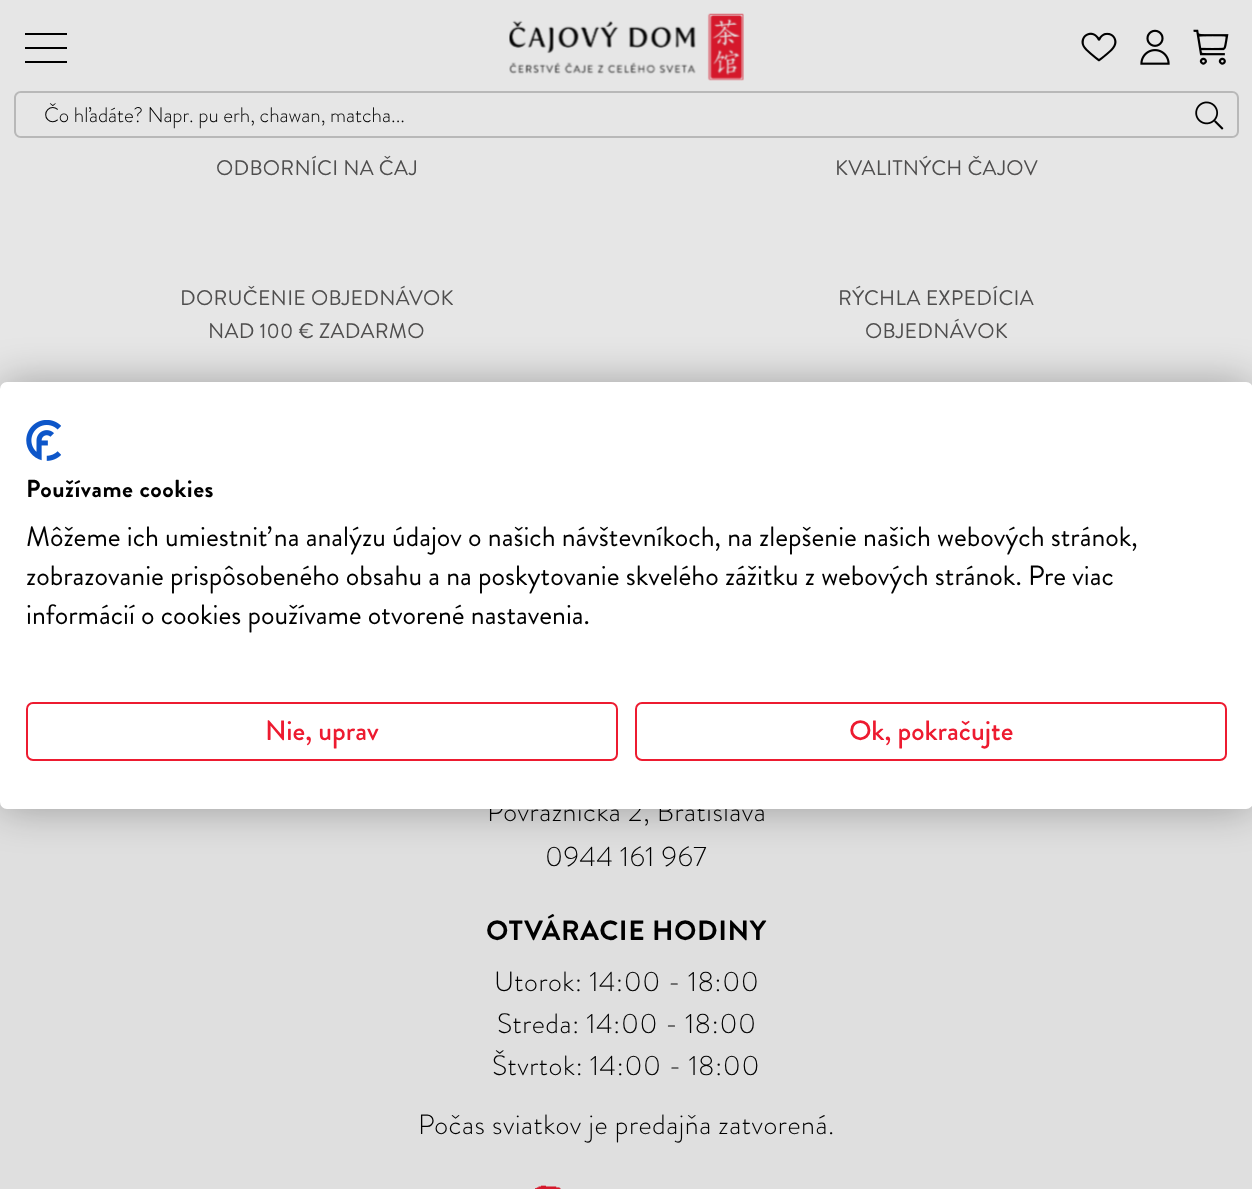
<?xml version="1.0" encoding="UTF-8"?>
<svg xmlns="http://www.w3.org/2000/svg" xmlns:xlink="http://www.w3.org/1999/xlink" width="1252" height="1189">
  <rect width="100%" height="100%" fill="#e6e6e6" />
  <rect x="25" y="33" width="42" height="2" fill="#000000" />
  <rect x="25" y="47" width="42" height="2" fill="#000000" />
  <rect x="25" y="61" width="42" height="2" fill="#000000" />
  <image x="509" y="13" width="235" height="68" xlink:href="image1.png" />
  <image x="1081" y="32" width="36" height="30" xlink:href="image2.png" />
  <image x="1140" y="29" width="30" height="36" xlink:href="image3.png" />
  <image x="1193" y="29" width="36" height="36" xlink:href="image4.png" />
  <path d="M 21 91 h 1162 v 47 h -1162 c -4 0 -7 -3 -7 -7 v -33 c 0 -4 3 -7 7 -7 z m 0 2 h 1162 v 43 h -1162 c -3 0 -5 -2 -5 -5 v -33 c 0 -3 2 -5 5 -5 z" fill="#b8b8b8" fill-rule="evenodd" />
  <path d="M 1183 91 h 49 c 4 0 7 3 7 7 v 33 c 0 4 -3 7 -7 7 h -49 z m 0 2 h 49 c 3 0 5 2 5 5 v 33 c 0 3 -2 5 -5 5 h -49 z" fill="#b8b8b8" fill-rule="evenodd" />
  <image x="1195" y="101" width="29" height="29" xlink:href="image5.png" />
  <rect y="802" width="1252" height="387" fill="#dfdfdf" />
  <rect y="382" width="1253" height="427" rx="7" fill="#000000" fill-opacity="0.3" filter="blur(21px)" />
  <image x="535" y="1185" width="26" height="4" xlink:href="image7.png" />
  <text x="44" y="122" style="font-family: Brandon Grotesque; font-size: 21px; font-weight: 300; fill: #000000">Čo hľadáte? Napr. pu erh, chawan, matcha...</text>
  <text x="216" y="175" style="font-family: Brandon Grotesque; font-size: 21px; letter-spacing: 0.25px; fill: #4f4e4e">ODBORNÍCI NA ČAJ</text>
  <text x="835" y="175" style="font-family: Brandon Grotesque; font-size: 21px; letter-spacing: 0.25px; fill: #4f4e4e">KVALITNÝCH ČAJOV</text>
  <text x="180" y="305" style="font-family: Brandon Grotesque; font-size: 21px; letter-spacing: 0.25px; fill: #4f4e4e">DORUČENIE OBJEDNÁVOK</text>
  <text x="208" y="338" style="font-family: Brandon Grotesque; font-size: 21px; letter-spacing: 0.25px; fill: #4f4e4e">NAD 100 € ZADARMO</text>
  <text x="838" y="305" style="font-family: Brandon Grotesque; font-size: 21px; letter-spacing: 0.25px; fill: #4f4e4e">RÝCHLA EXPEDÍCIA</text>
  <text x="865" y="338" style="font-family: Brandon Grotesque; font-size: 21px; letter-spacing: 0.25px; fill: #4f4e4e">OBJEDNÁVOK</text>
  <text x="487" y="821" style="font-family: Brandon Grotesque; font-size: 28px; font-weight: 300; letter-spacing: 0.55px; fill: #000000">Povraznícka 2, Bratislava</text>
  <rect y="382" width="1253" height="427" rx="7" fill="#ffffff" />
  <rect x="636" y="703" width="590" height="57" rx="6" fill="none" stroke="#ed1b30" stroke-width="2" />
  <text x="849" y="740" style="font-family: Brandon Grotesque; font-size: 28px; font-weight: 500; fill: #ed1b30">Ok, pokračujte</text>
  <rect x="27" y="703" width="590" height="57" rx="6" fill="none" stroke="#ed1b30" stroke-width="2" />
  <text x="265" y="740" style="font-family: Brandon Grotesque; font-size: 28px; font-weight: 500; fill: #ed1b30">Nie, uprav</text>
  <text x="26" y="624" style="font-family: Brandon Grotesque; font-size: 28px; fill: #000000">informácií o cookies používame otvorené nastavenia.</text>
  <text x="26" y="585" style="font-family: Brandon Grotesque; font-size: 28px; fill: #000000">zobrazovanie prispôsobeného obsahu a na poskytovanie skvelého zážitku z webových stránok. Pre viac</text>
  <text x="26" y="546" style="font-family: Brandon Grotesque; font-size: 28px; fill: #000000">Môžeme ich umiestniť na analýzu údajov o našich návštevníkoch, na zlepšenie našich webových stránok,</text>
  <text x="26" y="497" style="font-family: Brandon Grotesque; font-size: 24.5px; font-weight: bold; letter-spacing: 0.5px; fill: #000000">Používame cookies</text>
  <image x="26" y="420" width="35" height="41" xlink:href="image6.png" />
  <text x="545" y="866" style="font-family: Brandon Grotesque; font-size: 28px; font-weight: 300; letter-spacing: 0.55px; fill: #000000">0944 161 967</text>
  <text x="486" y="940" style="font-family: Brandon Grotesque; font-size: 28px; font-weight: bold; letter-spacing: 0.55px; fill: #000000">OTVÁRACIE HODINY</text>
  <text x="494" y="991" style="font-family: Brandon Grotesque; font-size: 28px; font-weight: 300; letter-spacing: 0.55px; fill: #000000">Utorok: 14:00 - 18:00</text>
  <text x="497" y="1033" style="font-family: Brandon Grotesque; font-size: 28px; font-weight: 300; letter-spacing: 0.55px; fill: #000000">Streda: 14:00 - 18:00</text>
  <text x="492" y="1075" style="font-family: Brandon Grotesque; font-size: 28px; font-weight: 300; letter-spacing: 0.55px; fill: #000000">Štvrtok: 14:00 - 18:00</text>
  <text x="418" y="1134" style="font-family: Brandon Grotesque; font-size: 28px; font-weight: 300; letter-spacing: 0.55px; fill: #000000">Počas sviatkov je predajňa zatvorená.</text>
</svg>
